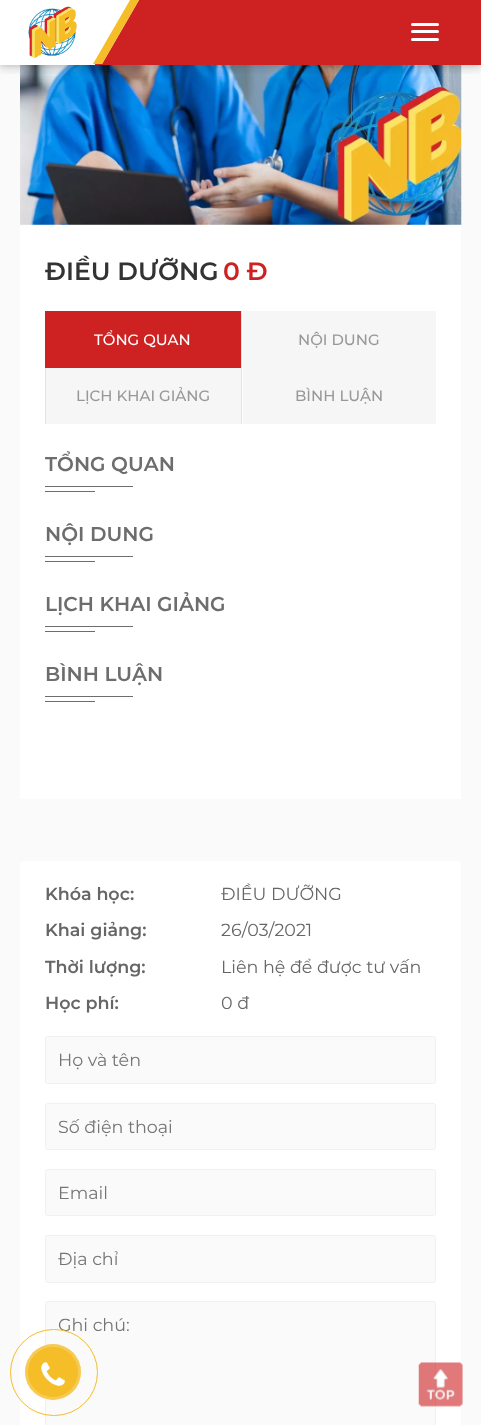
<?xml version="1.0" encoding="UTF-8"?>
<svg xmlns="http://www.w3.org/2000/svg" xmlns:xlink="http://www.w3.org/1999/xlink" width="481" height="1425">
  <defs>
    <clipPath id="clip1"><rect x="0" y="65" width="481" height="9" /></clipPath>
  </defs>
  <rect width="100%" height="100%" fill="#fafafa" />
  <image x="20" y="65" width="442" height="160" xlink:href="image2.png" />
  <rect width="481" height="65" fill="#000000" fill-opacity="0.2" filter="blur(3px)" />
  <rect x="95" width="386" height="65" fill="#cd2122" />
  <g clip-path="url(#clip1)">
    <rect y="6" width="481" height="65" fill="#323232" fill-opacity="0.1" filter="blur(4px)" />
  </g>
  <rect width="95" height="65" fill="#ffffff" />
  <path d="M 51 0 h 88 l -37 64 h -88 z" fill="#ffffff" />
  <path d="M 130 0 h 9 l -37 64 h -9 z" fill="#f5bd28" />
  <image x="28" y="6" width="49" height="53" xlink:href="image1.png" />
  <rect x="411" y="23" width="28" height="3" rx="1.5" fill="#ffffff" />
  <rect x="411" y="30" width="28" height="3" rx="1.5" fill="#ffffff" />
  <rect x="411" y="38" width="28" height="3" rx="1.5" fill="#ffffff" />
  <rect x="20" y="225" width="441" height="574" fill="#ffffff" />
  <rect x="45" y="311" width="196" height="57" fill="#cd2122" />
  <rect x="241" y="311" width="1" height="113" fill="#e3e3e3" />
  <rect x="243" y="311" width="193" height="113" fill="#f6f6f6" />
  <rect x="45" y="368" width="1" height="56" fill="#e3e3e3" />
  <rect x="46" y="368" width="195" height="56" fill="#f6f6f6" />
  <rect x="45" y="486" width="88" height="1" fill="#6d6d6d" />
  <rect x="45" y="491" width="50" height="1" fill="#6d6d6d" />
  <rect x="45" y="556" width="88" height="1" fill="#6d6d6d" />
  <rect x="45" y="561" width="50" height="1" fill="#6d6d6d" />
  <rect x="45" y="626" width="88" height="1" fill="#6d6d6d" />
  <rect x="45" y="631" width="50" height="1" fill="#6d6d6d" />
  <rect x="45" y="696" width="88" height="1" fill="#6d6d6d" />
  <rect x="45" y="701" width="50" height="1" fill="#6d6d6d" />
  <rect x="20" y="861" width="441" height="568" rx="4" fill="#ffffff" />
  <rect x="45.5" y="1036.5" width="390" height="47" rx="2" fill="#fafafa" stroke="#f1f1f1" />
  <rect x="45.5" y="1103.5" width="390" height="46" rx="2" fill="#fafafa" stroke="#f1f1f1" />
  <rect x="45.5" y="1169.5" width="390" height="46" rx="2" fill="#fafafa" stroke="#f1f1f1" />
  <rect x="45.5" y="1235.5" width="390" height="47" rx="2" fill="#fafafa" stroke="#f1f1f1" />
  <rect x="45.5" y="1301.5" width="390" height="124" rx="2" fill="#fafafa" stroke="#f1f1f1" />
  <circle cx="53" cy="1372" r="28" fill="#f5bd28" />
  <circle cx="53" cy="1372" r="26.5" fill="none" stroke="#ffffff" stroke-opacity="0.2" stroke-width="3" />
  <image x="41" y="1362" width="24" height="24" xlink:href="image3.png" />
  <image x="418" y="1362" width="45" height="45" xlink:href="image4.png" />
  <text x="45" y="280" style="font-family: Montserrat; font-size: 25px; font-weight: 600; fill: #333333">ĐIỀU DƯỠNG</text>
  <text x="223" y="280" style="font-family: Montserrat; font-size: 25px; font-weight: 600; fill: #cd2122">0 Đ</text>
  <text x="94" y="345" style="font-family: Montserrat; font-size: 15px; font-weight: 500; fill: #ffffff">TỔNG QUAN</text>
  <text x="298" y="345" style="font-family: Montserrat; font-size: 15px; font-weight: 500; fill: #989898">NỘI DUNG</text>
  <text x="76" y="401" style="font-family: Montserrat; font-size: 15px; font-weight: 500; fill: #989898">LỊCH KHAI GIẢNG</text>
  <text x="295" y="401" style="font-family: Montserrat; font-size: 15px; font-weight: 500; fill: #989898">BÌNH LUẬN</text>
  <text x="45" y="471" style="font-family: Montserrat; font-size: 20px; font-weight: 600; fill: #6d6d6d">TỔNG QUAN</text>
  <text x="45" y="541" style="font-family: Montserrat; font-size: 20px; font-weight: 600; fill: #6d6d6d">NỘI DUNG</text>
  <text x="45" y="611" style="font-family: Montserrat; font-size: 20px; font-weight: 600; fill: #6d6d6d">LỊCH KHAI GIẢNG</text>
  <text x="45" y="681" style="font-family: Montserrat; font-size: 20px; font-weight: 600; fill: #6d6d6d">BÌNH LUẬN</text>
  <text x="45" y="900" style="font-family: Montserrat; font-size: 17.5px; font-weight: 600; fill: #666666">Khóa học:</text>
  <text x="221" y="900" style="font-family: Montserrat; font-size: 17.5px; fill: #666666">ĐIỀU DƯỠNG</text>
  <text x="45" y="936" style="font-family: Montserrat; font-size: 17.5px; font-weight: 600; fill: #666666">Khai giảng:</text>
  <text x="221" y="936" style="font-family: Montserrat; font-size: 17.5px; fill: #666666">26/03/2021</text>
  <text x="45" y="973" style="font-family: Montserrat; font-size: 17.5px; font-weight: 600; fill: #666666">Thời lượng:</text>
  <text x="221" y="973" style="font-family: Montserrat; font-size: 17.5px; fill: #666666">Liên hệ để được tư vấn</text>
  <text x="45" y="1009" style="font-family: Montserrat; font-size: 17.5px; font-weight: 600; fill: #666666">Học phí:</text>
  <text x="221" y="1009" style="font-family: Montserrat; font-size: 17.5px; fill: #666666">0 đ</text>
  <text x="58" y="1066" style="font-family: Montserrat; font-size: 17.5px; fill: #757575">Họ và tên</text>
  <text x="58" y="1133" style="font-family: Montserrat; font-size: 17.5px; fill: #757575">Số điện thoại</text>
  <text x="58" y="1199" style="font-family: Montserrat; font-size: 17.5px; fill: #757575">Email</text>
  <text x="58" y="1265" style="font-family: Montserrat; font-size: 17.5px; fill: #757575">Địa chỉ</text>
  <text x="58" y="1331" style="font-family: Montserrat; font-size: 17.5px; fill: #757575">Ghi chú:</text>
  <rect x="10.5" y="1329.5" width="87" height="86" rx="43" fill="none" stroke="#f5bd28" />
</svg>
